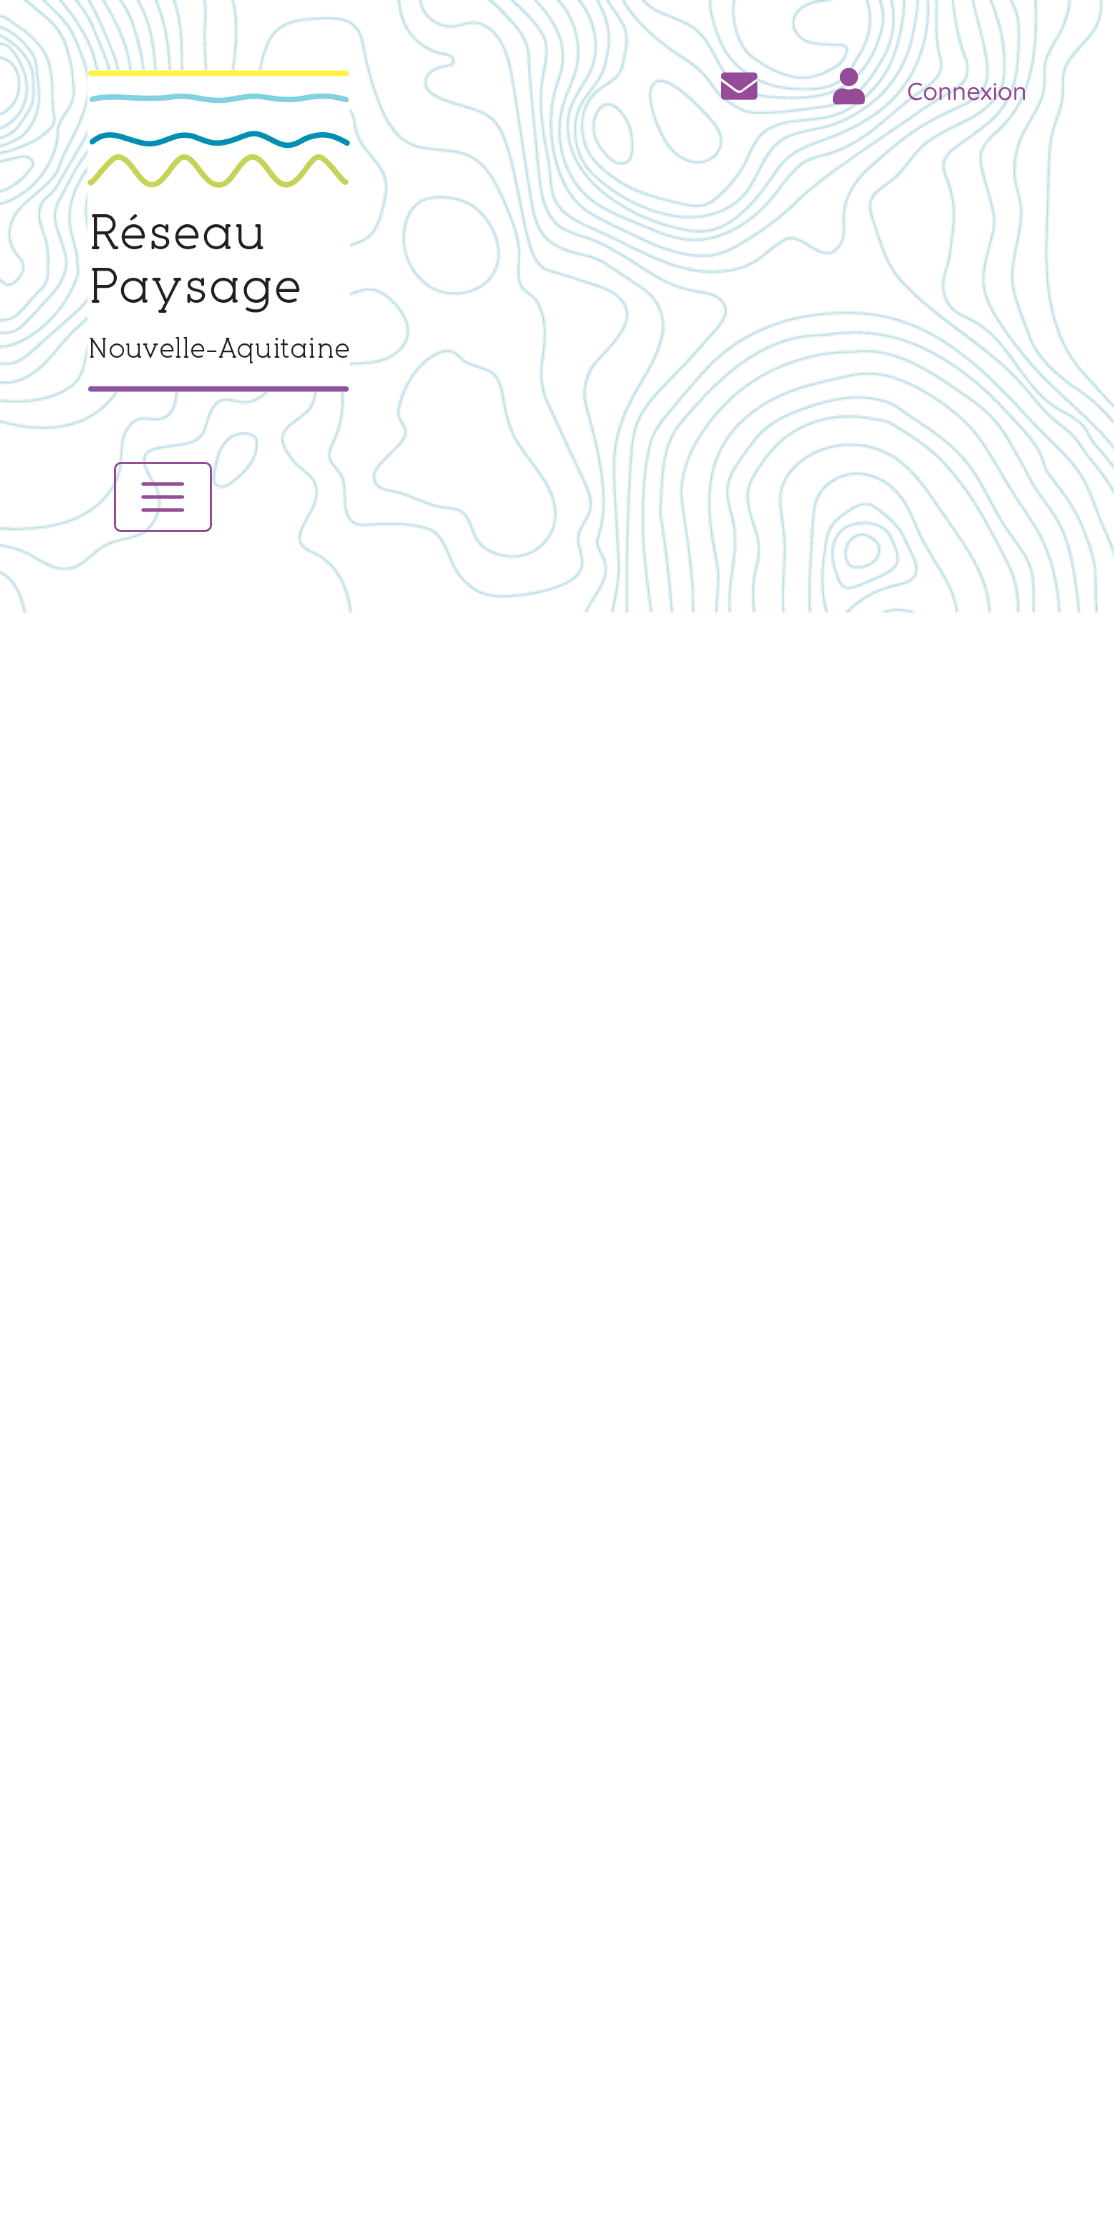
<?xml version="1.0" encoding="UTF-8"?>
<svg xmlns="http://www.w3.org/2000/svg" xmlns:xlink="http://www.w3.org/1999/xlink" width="1114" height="2237">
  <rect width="100%" height="100%" fill="#ffffff" />
  <image x="0" y="0" width="1114" height="613" xlink:href="image1.png" />
  <image x="87" y="70" width="263" height="322" xlink:href="image2.png" />
  <image x="721" y="72" width="37" height="28" xlink:href="image3.png" />
  <image x="833" y="67" width="32" height="38" xlink:href="image4.png" />
  <rect x="115" y="463" width="96" height="68" rx="6" fill="none" stroke="#954b97" stroke-width="2" />
  <path d="M 143 484 h 39.5 m -39.5 13 h 39.5 m -39.5 13 h 39.5" fill="none" stroke="#954b97" stroke-width="3.3" stroke-linecap="round" />
  <text x="907" y="100" style="font-family: Quicksand; font-size: 24.5px; font-weight: 500; fill: #954b97">Connexion</text>
</svg>
